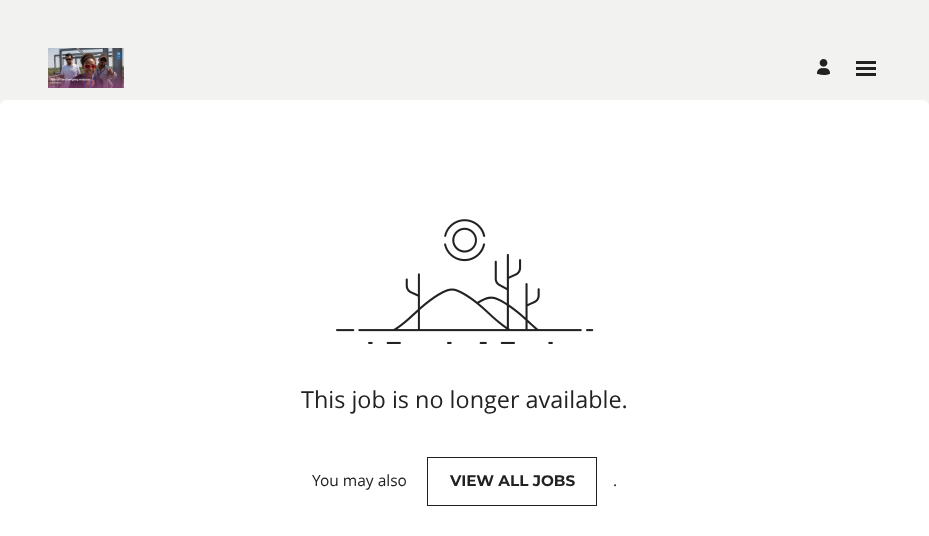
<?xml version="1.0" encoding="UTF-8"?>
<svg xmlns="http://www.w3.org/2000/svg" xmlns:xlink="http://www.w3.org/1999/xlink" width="929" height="536">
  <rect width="100%" height="100%" fill="#f2f2f0" />
  <image x="48" y="48" width="76" height="40" xlink:href="image1.png" />
  <image x="817" y="59" width="13" height="16" xlink:href="image2.png" />
  <rect x="856" y="61" width="20" height="3" fill="#222222" />
  <rect x="856" y="67" width="20" height="3" fill="#222222" />
  <rect x="856" y="73" width="20" height="3" fill="#222222" />
  <rect y="100" width="929" height="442" rx="6" fill="#ffffff" />
  <image x="336" y="219" width="258" height="125" xlink:href="image3.png" />
  <rect x="427.5" y="457.5" width="169" height="48" fill="none" stroke="#222222" />
  <text x="301" y="408" style="font-family: Open Sans; font-size: 23.4px; fill: #222222">This job is no longer available.</text>
  <text x="312" y="486" style="font-family: Open Sans; font-size: 15.5px; fill: #222222">You may also</text>
  <text x="450" y="486" style="font-family: Montserrat; font-size: 15.25px; font-weight: bold; fill: #222222">VIEW ALL JOBS</text>
  <text x="613" y="486" style="font-family: Open Sans; font-size: 15.5px; fill: #222222">.</text>
</svg>
